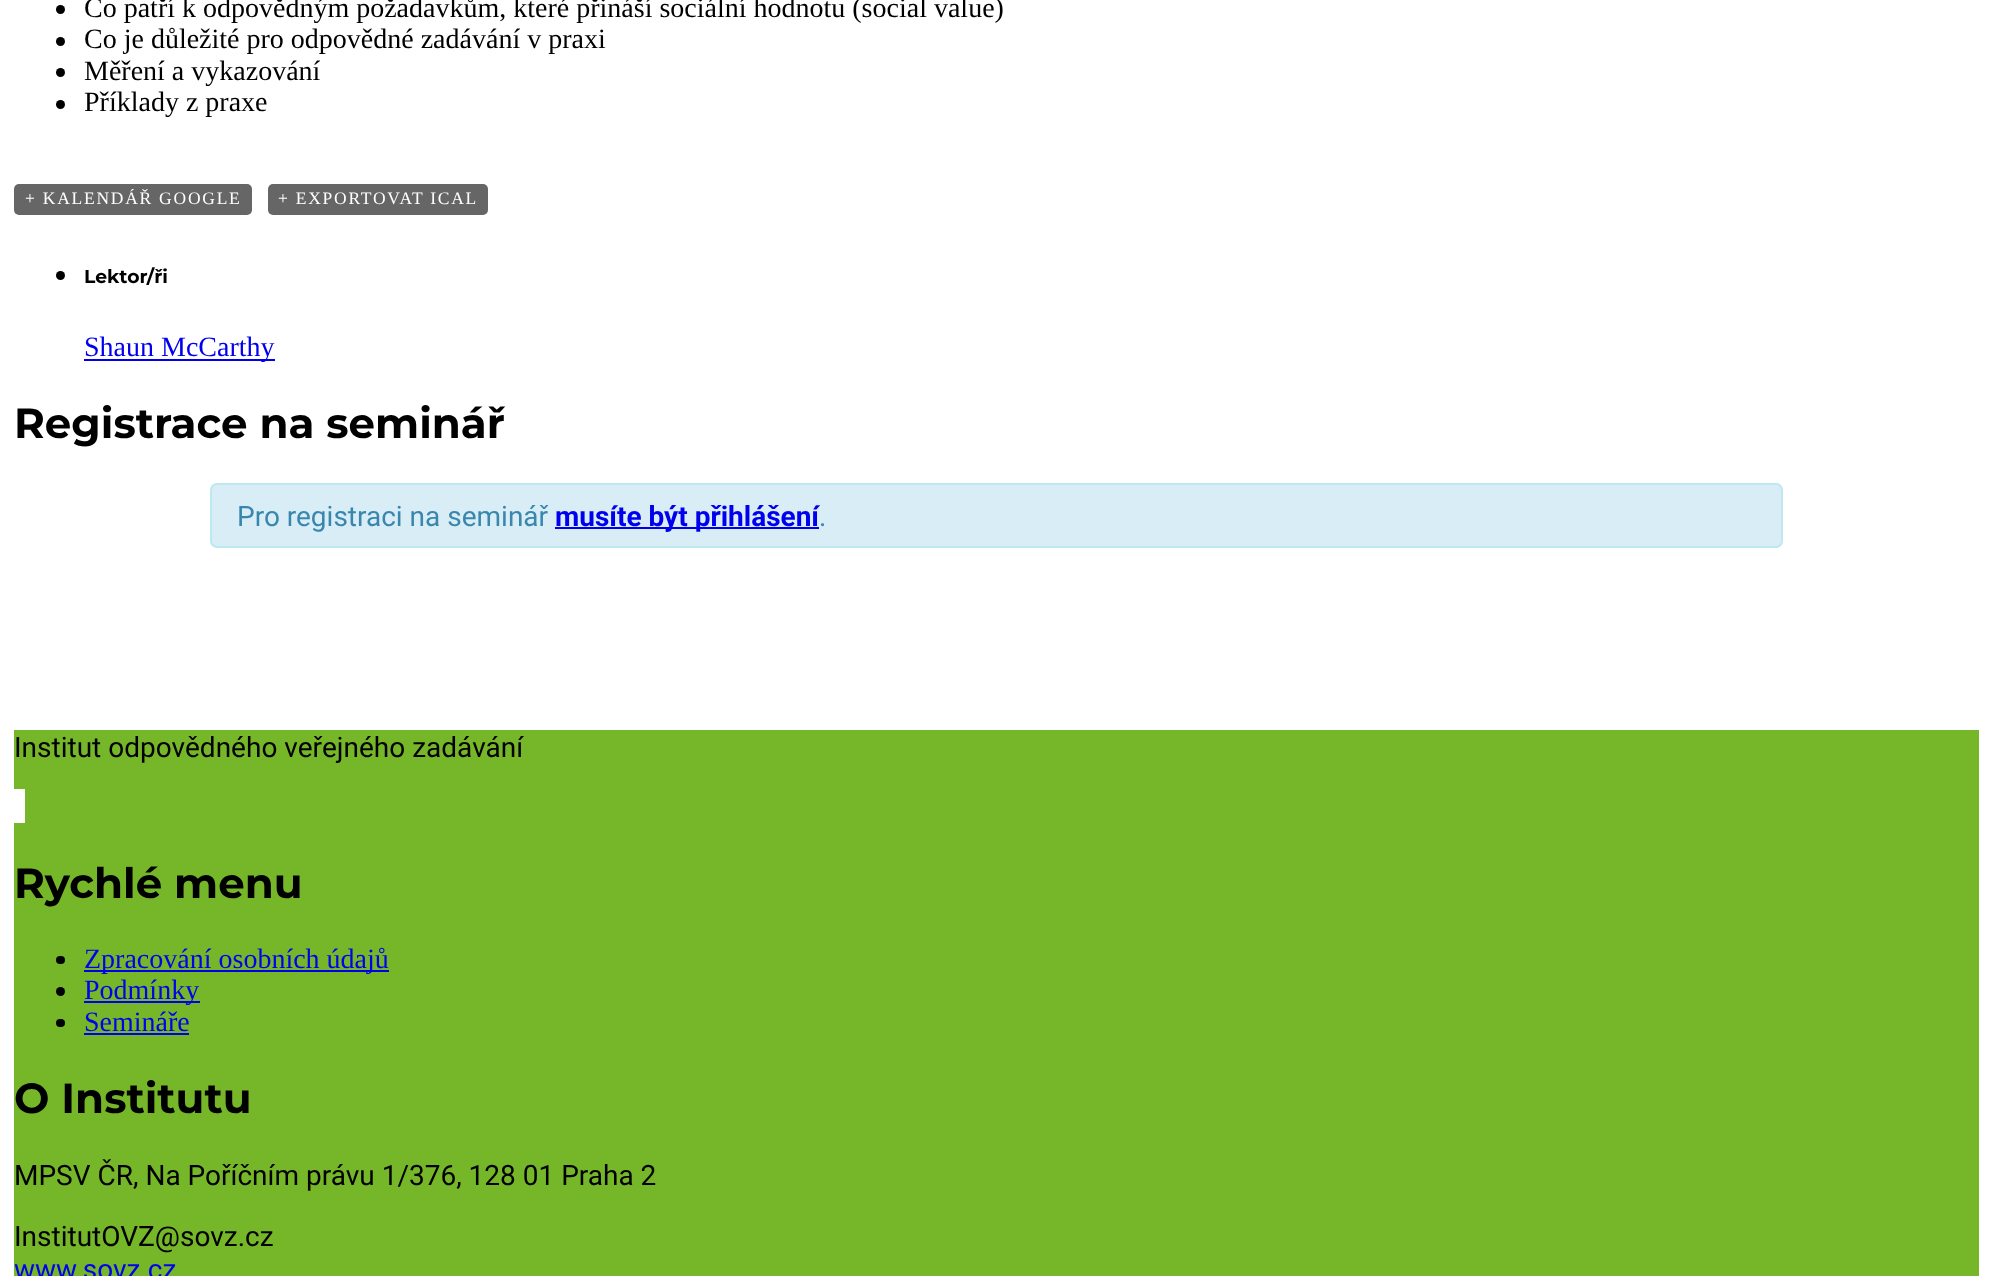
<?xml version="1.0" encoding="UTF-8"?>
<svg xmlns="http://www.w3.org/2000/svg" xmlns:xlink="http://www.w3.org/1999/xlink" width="1992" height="1276">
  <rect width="100%" height="100%" fill="#ffffff" />
  <circle cx="60.5" cy="9.5" r="4.5" fill="#000000" />
  <circle cx="60.5" cy="41.5" r="4.5" fill="#000000" />
  <circle cx="60.5" cy="72.5" r="4.5" fill="#000000" />
  <circle cx="60.5" cy="104.5" r="4.5" fill="#000000" />
  <rect x="14" y="184" width="238" height="31" rx="5" fill="#666666" />
  <rect x="268" y="184" width="220" height="31" rx="5" fill="#666666" />
  <circle cx="60.5" cy="275.5" r="4.5" fill="#000000" />
  <rect x="84" y="359" width="191" height="2" fill="#0000ee" />
  <rect x="211" y="484" width="1571" height="63" rx="6" fill="#d9edf7" stroke="#bce8f1" stroke-width="2" />
  <rect x="555" y="527" width="264" height="2" fill="#0000ee" />
  <rect x="14" y="730" width="1965" height="546" fill="#76b729" />
  <rect x="14" y="789" width="11" height="34" fill="#ffffff" />
  <rect x="56" y="956" width="9" height="8" rx="4" fill="#000000" />
  <rect x="84" y="970" width="305" height="2" fill="#0000ee" />
  <circle cx="60.5" cy="991.5" r="4.5" fill="#000000" />
  <rect x="84" y="1001" width="116" height="2" fill="#0000ee" />
  <rect x="56" y="1019" width="9" height="8" rx="4" fill="#000000" />
  <rect x="84" y="1033" width="105" height="2" fill="#0000ee" />
  <text x="84" y="17" style="font-family: Liberation Serif; font-size: 28px; fill: #000000">Co patří k odpovědným požadavkům, které přináší sociální hodnotu (social value)</text>
  <text x="84" y="48" style="font-family: Liberation Serif; font-size: 28px; fill: #000000">Co je důležité pro odpovědné zadávání v praxi</text>
  <text x="84" y="80" style="font-family: Liberation Serif; font-size: 28px; fill: #000000">Měření a vykazování</text>
  <text x="84" y="111" style="font-family: Liberation Serif; font-size: 28px; fill: #000000">Příklady z praxe</text>
  <text x="25" y="204" style="font-family: Liberation Serif; font-size: 17.5px; letter-spacing: 1.75px; fill: #ffffff">+ KALENDÁŘ GOOGLE</text>
  <text x="278" y="204" style="font-family: Liberation Serif; font-size: 17.5px; letter-spacing: 1.75px; fill: #ffffff">+ EXPORTOVAT ICAL</text>
  <text x="84" y="283" style="font-family: Montserrat; font-size: 18.75px; font-weight: bold; fill: #000000">Lektor/ři</text>
  <text x="84" y="356" style="font-family: Liberation Serif; font-size: 28px; fill: #0000ee">Shaun McCarthy</text>
  <text x="14" y="438" style="font-family: Montserrat; font-size: 42px; font-weight: bold; fill: #000000">Registrace na seminář</text>
  <text x="237" y="526" style="font-family: Roboto; font-size: 28px; fill: #3a87ad">Pro registraci na seminář</text>
  <text x="555" y="526" style="font-family: Roboto; font-size: 28px; font-weight: bold; fill: #0000ee">musíte být přihlášení</text>
  <text x="819" y="526" style="font-family: Roboto; font-size: 28px; fill: #3a87ad">.</text>
  <text x="14" y="757" style="font-family: Roboto; font-size: 28px; fill: #000000">Institut odpovědného veřejného zadávání</text>
  <text x="14" y="898" style="font-family: Montserrat; font-size: 42px; font-weight: bold; fill: #000000">Rychlé menu</text>
  <text x="84" y="968" style="font-family: Liberation Serif; font-size: 28px; fill: #0000ee">Zpracování osobních údajů</text>
  <text x="84" y="999" style="font-family: Liberation Serif; font-size: 28px; fill: #0000ee">Podmínky</text>
  <text x="84" y="1031" style="font-family: Liberation Serif; font-size: 28px; fill: #0000ee">Semináře</text>
  <text x="14" y="1113" style="font-family: Montserrat; font-size: 42px; font-weight: bold; fill: #000000">O Institutu</text>
  <text x="14" y="1185" style="font-family: Roboto; font-size: 28px; fill: #000000">MPSV ČR, Na Poříčním právu 1/376, 128 01 Praha 2</text>
  <text x="14" y="1246" style="font-family: Roboto; font-size: 28px; fill: #000000">InstitutOVZ@sovz.cz</text>
  <text x="14" y="1279" style="font-family: Roboto; font-size: 28px; fill: #0000ee">www.sovz.cz</text>
</svg>
